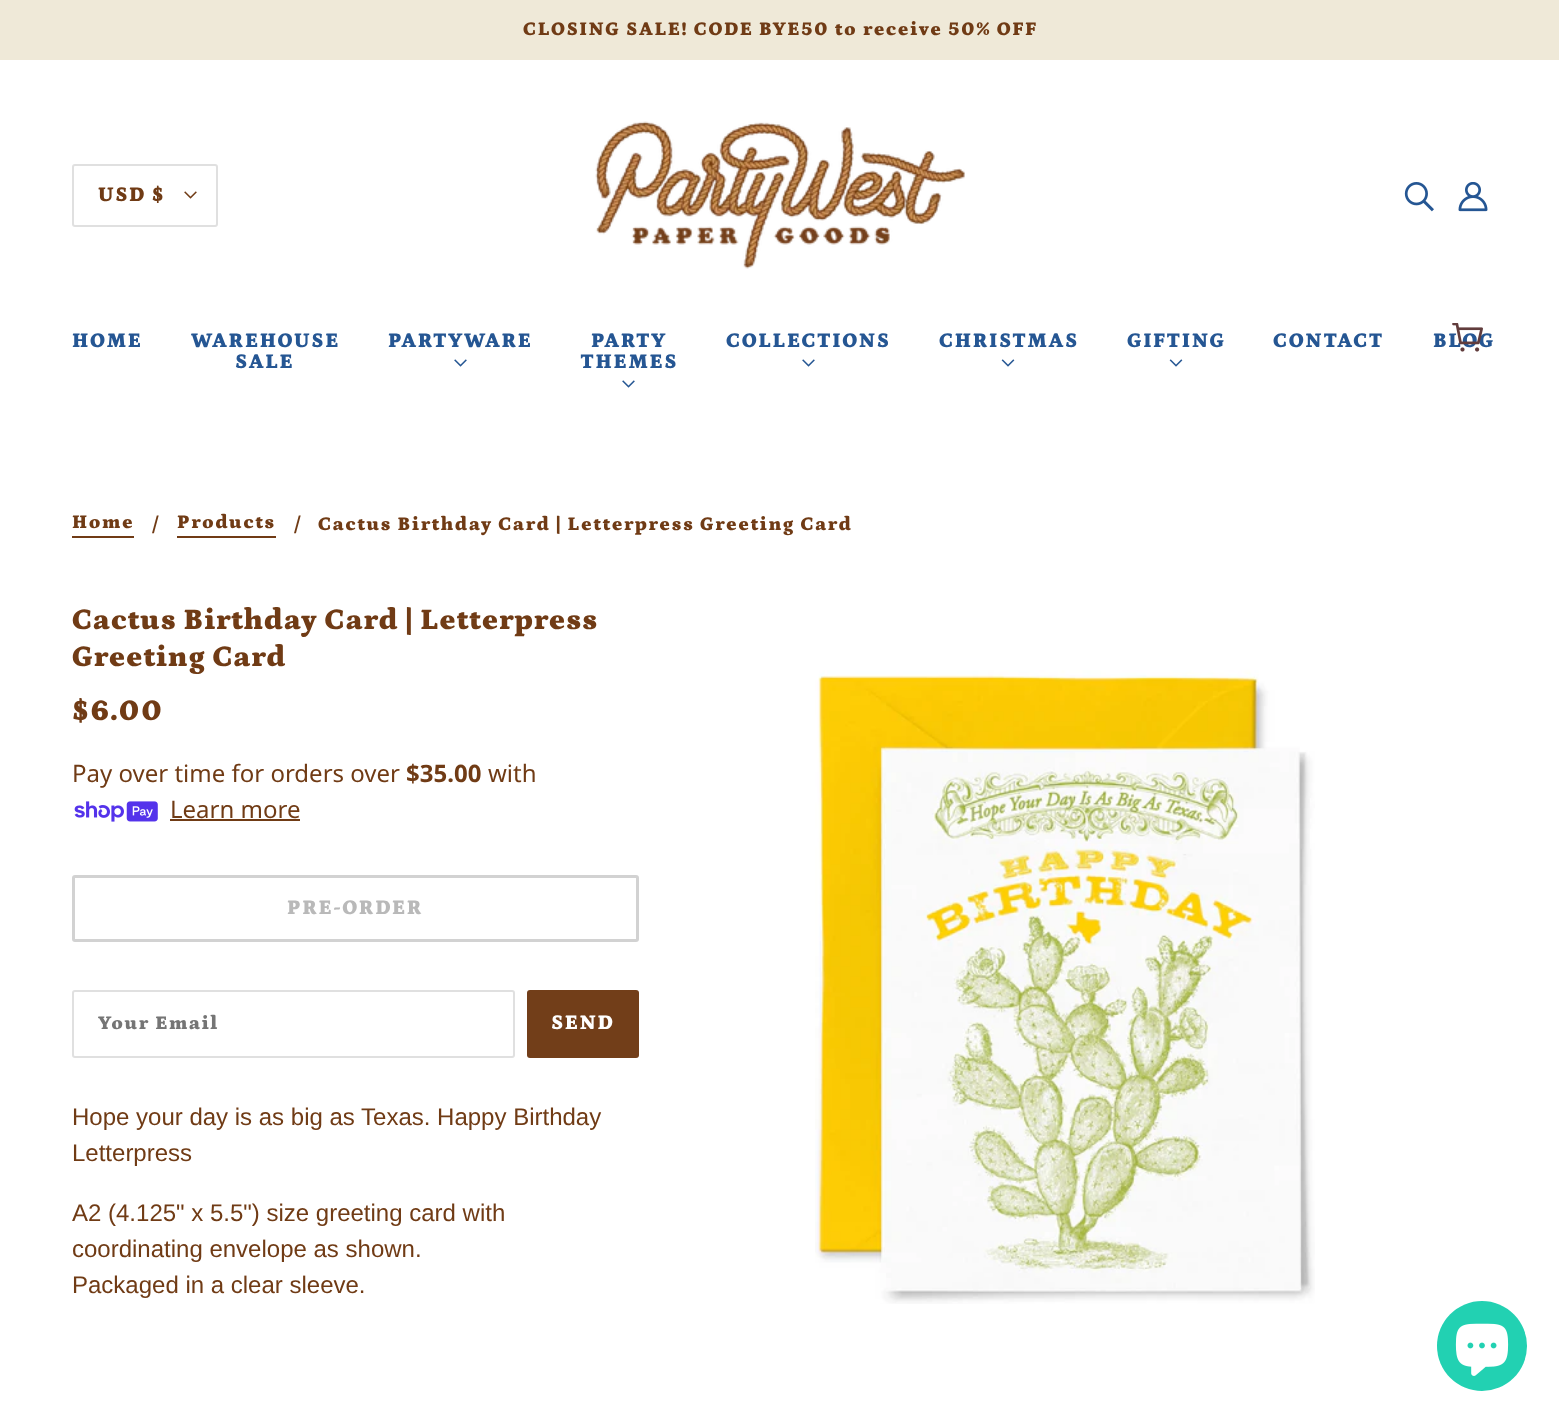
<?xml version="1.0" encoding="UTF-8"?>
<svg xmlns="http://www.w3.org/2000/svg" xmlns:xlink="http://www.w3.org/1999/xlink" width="1559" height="1421">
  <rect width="100%" height="100%" fill="#ffffff" />
  <rect width="1559" height="60" fill="#efe9d8" />
  <rect x="73" y="165" width="144" height="61" rx="2" fill="none" stroke="#e0e0e0" stroke-width="2" />
  <image x="184" y="191" width="13" height="8" xlink:href="image1.png" />
  <image x="595" y="121" width="370" height="148" xlink:href="image2.png" />
  <image x="1404" y="182" width="30" height="30" xlink:href="image3.png" />
  <image x="1458" y="182" width="30" height="30" xlink:href="image4.png" />
  <image x="454" y="359" width="13" height="8" xlink:href="image6.png" />
  <image x="622" y="380" width="13" height="8" xlink:href="image6.png" />
  <image x="802" y="359" width="13" height="8" xlink:href="image6.png" />
  <image x="1001" y="359" width="14" height="8" xlink:href="image7.png" />
  <image x="1169" y="359" width="14" height="8" xlink:href="image7.png" />
  <rect x="72" y="536" width="62" height="2" fill="#703b15" />
  <rect x="177" y="536" width="99" height="2" fill="#703b15" />
  <image x="74" y="801" width="84" height="21" xlink:href="image8.png" />
  <rect x="170" y="819" width="130" height="2" fill="#703b15" />
  <rect x="73.5" y="876.5" width="564" height="64" rx="1.5" fill="none" stroke="#d2d2d2" stroke-width="3" />
  <rect x="73" y="991" width="441" height="66" rx="2" fill="none" stroke="#e0e0e0" stroke-width="2" />
  <rect x="527" y="990" width="112" height="68" rx="3" fill="#723e19" />
  <image x="815" y="670" width="500" height="634" xlink:href="image9.png" />
  <circle cx="1482" cy="1346" r="45" fill="#22d1b2" />
  <image x="1455" y="1323" width="54" height="53" xlink:href="image10.png" />
  <text x="523" y="35" style="font-family: Petrona; font-size: 19.5px; font-weight: 900; letter-spacing: 1.5px; fill: #703b15">CLOSING SALE! CODE BYE50 to receive 50% OFF</text>
  <text x="98" y="201" style="font-family: Petrona; font-size: 21px; font-weight: 900; letter-spacing: 1.5px; fill: #703b15">USD $</text>
  <text x="72" y="347" style="font-family: Petrona; font-size: 21px; font-weight: 900; letter-spacing: 1.5px; fill: #255693">HOME</text>
  <text x="191" y="347" style="font-family: Petrona; font-size: 21px; font-weight: 900; letter-spacing: 1.5px; fill: #255693">WAREHOUSE</text>
  <text x="235" y="368" style="font-family: Petrona; font-size: 21px; font-weight: 900; letter-spacing: 1.5px; fill: #255693">SALE</text>
  <text x="388" y="347" style="font-family: Petrona; font-size: 21px; font-weight: 900; letter-spacing: 1.5px; fill: #255693">PARTYWARE</text>
  <text x="591" y="347" style="font-family: Petrona; font-size: 21px; font-weight: 900; letter-spacing: 1.5px; fill: #255693">PARTY</text>
  <text x="580" y="368" style="font-family: Petrona; font-size: 21px; font-weight: 900; letter-spacing: 1.5px; fill: #255693">THEMES</text>
  <text x="726" y="347" style="font-family: Petrona; font-size: 21px; font-weight: 900; letter-spacing: 1.5px; fill: #255693">COLLECTIONS</text>
  <text x="939" y="347" style="font-family: Petrona; font-size: 21px; font-weight: 900; letter-spacing: 1.5px; fill: #255693">CHRISTMAS</text>
  <text x="1127" y="347" style="font-family: Petrona; font-size: 21px; font-weight: 900; letter-spacing: 1.5px; fill: #255693">GIFTING</text>
  <text x="1273" y="347" style="font-family: Petrona; font-size: 21px; font-weight: 900; letter-spacing: 1.5px; fill: #255693">CONTACT</text>
  <text x="1433" y="347" style="font-family: Petrona; font-size: 21px; font-weight: 900; letter-spacing: 1.5px; fill: #255693">BLOG</text>
  <image x="1452" y="323" width="31" height="29" xlink:href="image5.png" />
  <text x="72" y="528" style="font-family: Petrona; font-size: 19.5px; font-weight: 900; letter-spacing: 1.5px; fill: #703b15">Home</text>
  <text x="152" y="533" style="font-family: Liberation Sans; font-size: 24px; fill: #703b15">/</text>
  <text x="177" y="528" style="font-family: Petrona; font-size: 19.5px; font-weight: 900; letter-spacing: 1.5px; fill: #703b15">Products</text>
  <text x="294" y="533" style="font-family: Liberation Sans; font-size: 24px; fill: #703b15">/</text>
  <text x="318" y="530" style="font-family: Petrona; font-size: 19.5px; font-weight: 900; letter-spacing: 1.5px; fill: #703b15">Cactus Birthday Card | Letterpress Greeting Card</text>
  <text x="72" y="629" style="font-family: Petrona; font-size: 30px; font-weight: 900; letter-spacing: 0.75px; fill: #703b15">Cactus Birthday Card | Letterpress</text>
  <text x="72" y="666" style="font-family: Petrona; font-size: 30px; font-weight: 900; letter-spacing: 0.75px; fill: #703b15">Greeting Card</text>
  <text x="72" y="720" style="font-family: Petrona; font-size: 30px; font-weight: 900; letter-spacing: 1.5px; fill: #703b15">$6.00</text>
  <text x="72" y="782" style="font-family: Noto Sans; font-size: 24px; fill: #703b15">Pay over time for orders over</text>
  <text x="406" y="782" style="font-family: Noto Sans; font-size: 24px; font-weight: bold; fill: #703b15">$35.00</text>
  <text x="488" y="782" style="font-family: Noto Sans; font-size: 24px; fill: #703b15">with</text>
  <text x="170" y="818" style="font-family: Noto Sans; font-size: 24px; fill: #703b15">Learn more</text>
  <text x="287" y="914" style="font-family: Petrona; font-size: 21px; font-weight: 900; letter-spacing: 1.5px; fill: #b9b9b9">PRE-ORDER</text>
  <text x="98" y="1029" style="font-family: Petrona; font-size: 19.5px; font-weight: 900; letter-spacing: 1.5px; fill: #757575">Your Email</text>
  <text x="551" y="1029" style="font-family: Petrona; font-size: 21px; font-weight: 900; letter-spacing: 1.5px; fill: #ffffff">SEND</text>
  <text x="72" y="1125" style="font-family: Liberation Sans; font-size: 24px; fill: #703b15">Hope your day is as big as Texas. Happy Birthday</text>
  <text x="72" y="1161" style="font-family: Liberation Sans; font-size: 24px; fill: #703b15">Letterpress</text>
  <text x="72" y="1221" style="font-family: Liberation Sans; font-size: 24px; fill: #703b15">A2 (4.125" x 5.5") size greeting card with</text>
  <text x="72" y="1257" style="font-family: Liberation Sans; font-size: 24px; fill: #703b15">coordinating envelope as shown.</text>
  <text x="72" y="1293" style="font-family: Liberation Sans; font-size: 24px; fill: #703b15">Packaged in a clear sleeve.</text>
</svg>
